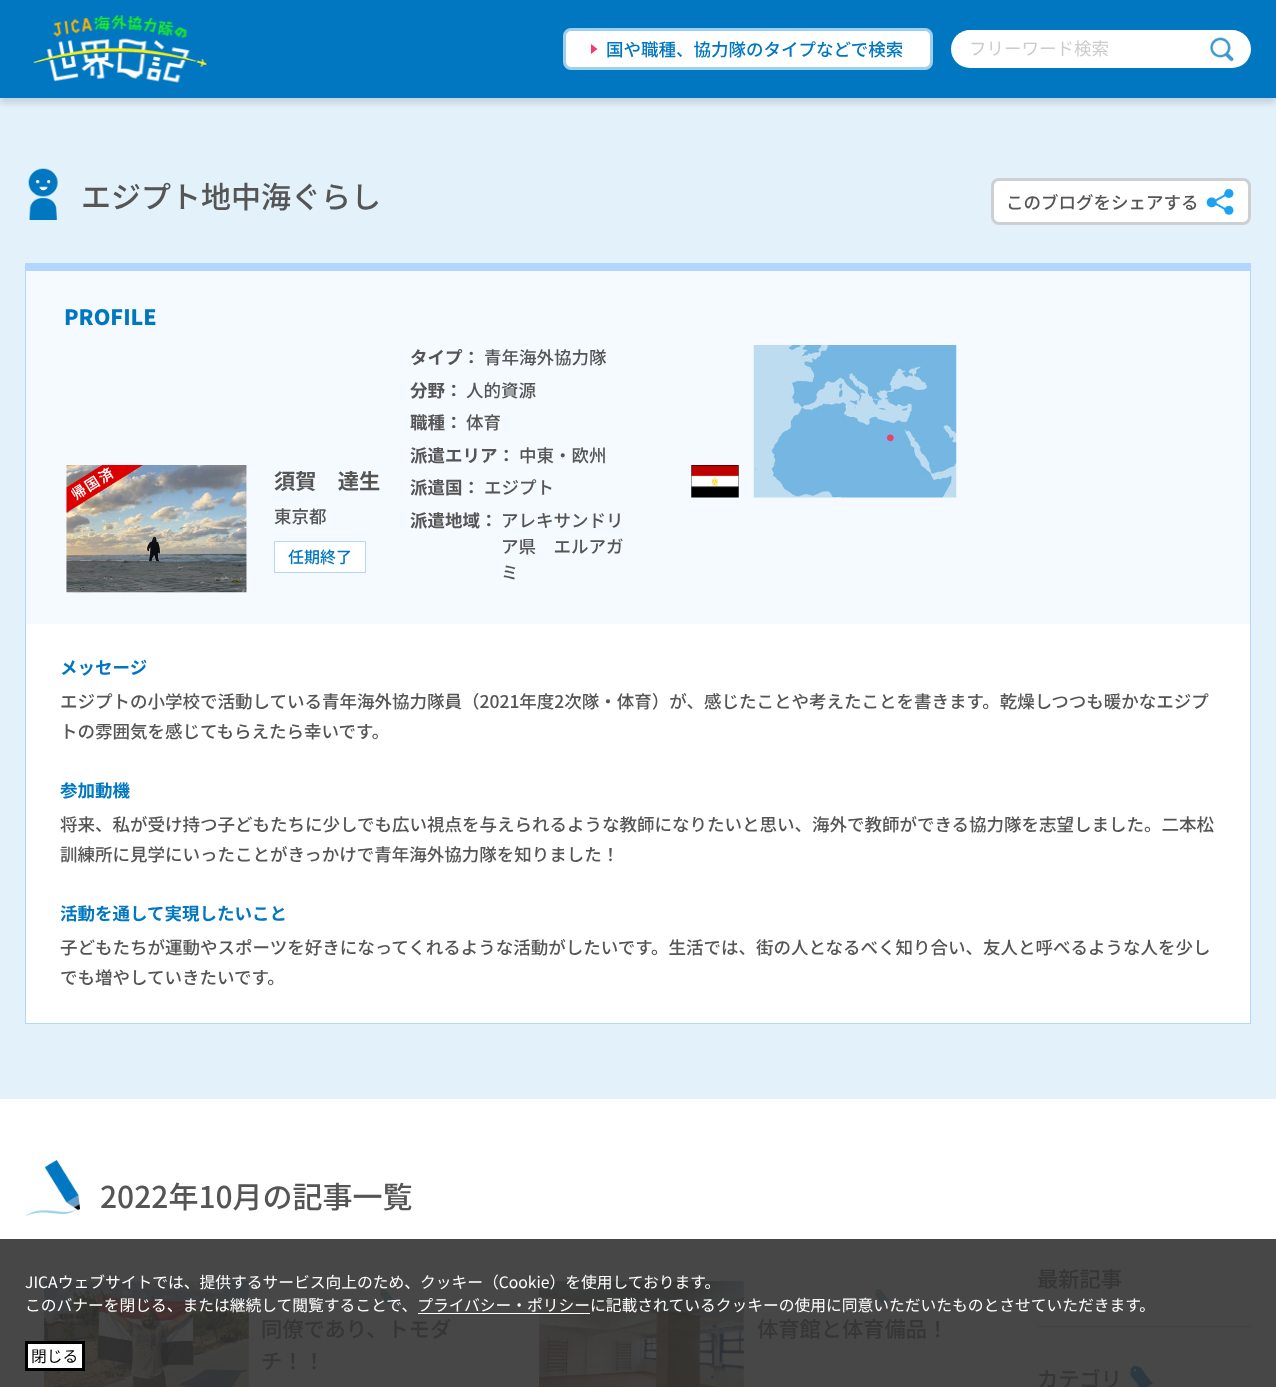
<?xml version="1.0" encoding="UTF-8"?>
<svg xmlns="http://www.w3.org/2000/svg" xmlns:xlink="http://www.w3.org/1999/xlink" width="1276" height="1387">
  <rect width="100%" height="100%" fill="#ffffff" />
  <rect y="1239" width="1276" height="148" fill="#474747" />
  <rect y="98" width="1276" height="1001" fill="#e3f1fb" />
  <rect y="5" width="1276" height="98" fill="#000000" fill-opacity="0.13" filter="blur(3px)" />
  <rect width="1276" height="98" fill="#0077c0" />
  <image x="33" y="15" width="174" height="68" xlink:href="image1.png" />
  <rect x="564.5" y="29.5" width="367" height="39" rx="6.5" fill="#ffffff" stroke="#9cd0ed" stroke-width="3" />
  <path d="M 591 54 v -10 l 6.5 5 z" fill="#f23b73" />
  <rect x="951" y="30" width="300" height="38" rx="19" fill="#ffffff" />
  <image x="1210" y="37" width="24" height="25" xlink:href="image2.png" />
  <image x="28" y="168" width="30" height="52" xlink:href="image3.png" />
  <rect x="992.5" y="179.5" width="257" height="44" rx="6.5" fill="#ffffff" stroke="#cdd0d2" stroke-width="3" />
  <image x="1206" y="188" width="28" height="27" xlink:href="image4.png" />
  <rect x="26" y="624" width="1224" height="399" fill="#ffffff" />
  <rect x="25" y="263" width="1226" height="8" fill="#b2d6fe" />
  <rect x="1250" y="263" width="1" height="761" fill="#b2d6fe" />
  <rect x="25" y="1023" width="1226" height="1" fill="#b2d6fe" />
  <rect x="25" y="263" width="1" height="761" fill="#b2d6fe" />
  <rect x="26" y="271" width="1224" height="353" fill="#f4faff" />
  <image x="66" y="465" width="181" height="128" xlink:href="image5.png" />
  <rect x="274.5" y="541.5" width="91" height="31" fill="#ffffff" stroke="#b2d6fe" />
  <image x="691" y="465" width="48" height="33" xlink:href="image6.png" />
  <image x="753" y="345" width="204" height="153" xlink:href="image7.png" />
  <image x="25" y="1160" width="55" height="57" xlink:href="image8.png" />
  <image x="44" y="1281" width="205" height="106" xlink:href="image9.png" />
  <image x="380" y="1289" width="14" height="16" xlink:href="image10.png" />
  <image x="539" y="1281" width="205" height="106" xlink:href="image11.png" />
  <image x="875" y="1289" width="14" height="16" xlink:href="image10.png" />
  <rect x="1038" y="1326" width="213" height="1" fill="#404141" />
  <image x="1130" y="1365" width="23" height="22" xlink:href="image12.png" />
  <rect x="418" y="1313" width="172" height="1" fill="#ffffff" />
  <rect x="26.5" y="1342.5" width="57" height="27" fill="#ffffff" stroke="#000000" stroke-width="3" />
  <text x="606" y="56" style="font-family: Noto Sans JP; font-size: 17.5px; font-weight: 500; fill: #0077c0">国や職種、協力隊のタイプなどで検索</text>
  <text x="969" y="55" style="font-family: Noto Sans JP; font-size: 17.5px; fill: #cccccc">フリーワード検索</text>
  <text x="81" y="208" style="font-family: Noto Sans JP; font-size: 30px; font-weight: 500; fill: #555555">エジプト地中海ぐらし</text>
  <text x="1006" y="209" style="font-family: Noto Sans JP; font-size: 17.5px; font-weight: 500; fill: #555555">このブログをシェアする</text>
  <text x="64" y="325" style="font-family: Noto Sans JP; font-size: 21.25px; font-weight: 900; fill: #0077c0">PROFILE</text>
  <text x="274" y="489" style="font-family: Noto Sans JP; font-size: 21.25px; font-weight: bold; fill: #555555">須賀　達生</text>
  <text x="274" y="523" style="font-family: Noto Sans JP; font-size: 17.5px; font-weight: 500; fill: #555555">東京都</text>
  <text x="288" y="563" style="font-family: Noto Sans JP; font-size: 16px; font-weight: 500; fill: #0077c0">任期終了</text>
  <text x="410" y="364" style="font-family: Noto Sans JP; font-size: 17.5px; font-weight: bold; fill: #555555">タイプ：</text>
  <text x="484" y="364" style="font-family: Noto Sans JP; font-size: 17.5px; font-weight: 500; fill: #555555">青年海外協力隊</text>
  <text x="410" y="397" style="font-family: Noto Sans JP; font-size: 17.5px; font-weight: bold; fill: #555555">分野：</text>
  <text x="466" y="397" style="font-family: Noto Sans JP; font-size: 17.5px; font-weight: 500; fill: #555555">人的資源</text>
  <text x="410" y="429" style="font-family: Noto Sans JP; font-size: 17.5px; font-weight: bold; fill: #555555">職種：</text>
  <text x="466" y="429" style="font-family: Noto Sans JP; font-size: 17.5px; font-weight: 500; fill: #555555">体育</text>
  <text x="410" y="462" style="font-family: Noto Sans JP; font-size: 17.5px; font-weight: bold; fill: #555555">派遣エリア：</text>
  <text x="519" y="462" style="font-family: Noto Sans JP; font-size: 17.5px; font-weight: 500; fill: #555555">中東・欧州</text>
  <text x="410" y="494" style="font-family: Noto Sans JP; font-size: 17.5px; font-weight: bold; fill: #555555">派遣国：</text>
  <text x="484" y="494" style="font-family: Noto Sans JP; font-size: 17.5px; font-weight: 500; fill: #555555">エジプト</text>
  <text x="410" y="527" style="font-family: Noto Sans JP; font-size: 17.5px; font-weight: bold; fill: #555555">派遣地域：</text>
  <text x="501" y="527" style="font-family: Noto Sans JP; font-size: 17.5px; font-weight: 500; fill: #555555">アレキサンドリ</text>
  <text x="501" y="553" style="font-family: Noto Sans JP; font-size: 17.5px; font-weight: 500; fill: #555555">ア県　エルアガ</text>
  <text x="501" y="579" style="font-family: Noto Sans JP; font-size: 17.5px; font-weight: 500; fill: #555555">ミ</text>
  <text x="60" y="674" style="font-family: Noto Sans JP; font-size: 17.5px; font-weight: bold; fill: #0077c0">メッセージ</text>
  <text x="60" y="708" style="font-family: Noto Sans JP; font-size: 17.5px; font-weight: 500; fill: #555555">エジプトの小学校で活動している青年海外協力隊員（2021年度2次隊・体育）が、感じたことや考えたことを書きます。乾燥しつつも暖かなエジプ</text>
  <text x="60" y="738" style="font-family: Noto Sans JP; font-size: 17.5px; font-weight: 500; fill: #555555">トの雰囲気を感じてもらえたら幸いです。</text>
  <text x="60" y="797" style="font-family: Noto Sans JP; font-size: 17.5px; font-weight: bold; fill: #0077c0">参加動機</text>
  <text x="60" y="831" style="font-family: Noto Sans JP; font-size: 17.5px; font-weight: 500; fill: #555555">将来、私が受け持つ子どもたちに少しでも広い視点を与えられるような教師になりたいと思い、海外で教師ができる協力隊を志望しました。二本松</text>
  <text x="60" y="861" style="font-family: Noto Sans JP; font-size: 17.5px; font-weight: 500; fill: #555555">訓練所に見学にいったことがきっかけで青年海外協力隊を知りました！</text>
  <text x="60" y="920" style="font-family: Noto Sans JP; font-size: 17.5px; font-weight: bold; fill: #0077c0">活動を通して実現したいこと</text>
  <text x="60" y="954" style="font-family: Noto Sans JP; font-size: 17.5px; font-weight: 500; fill: #555555">子どもたちが運動やスポーツを好きになってくれるような活動がしたいです。生活では、街の人となるべく知り合い、友人と呼べるような人を少し</text>
  <text x="60" y="984" style="font-family: Noto Sans JP; font-size: 17.5px; font-weight: 500; fill: #555555">でも増やしていきたいです。</text>
  <text x="100" y="1208" style="font-family: Noto Sans JP; font-size: 30px; font-weight: 500; fill: #555555">2022年10月の記事一覧</text>
  <text x="261" y="1337" style="font-family: Noto Sans JP; font-size: 21.25px; font-weight: 500; fill: #363636">同僚であり、トモダ</text>
  <text x="261" y="1369" style="font-family: Noto Sans JP; font-size: 21.25px; font-weight: 500; fill: #363636">チ！！</text>
  <text x="757" y="1337" style="font-family: Noto Sans JP; font-size: 21.25px; font-weight: 500; fill: #363636">体育館と体育備品！</text>
  <text x="1037" y="1287" style="font-family: Noto Sans JP; font-size: 21.25px; font-weight: 500; fill: #363636">最新記事</text>
  <text x="1037" y="1387" style="font-family: Noto Sans JP; font-size: 21.25px; font-weight: 500; fill: #363636">カテゴリ</text>
  <text x="25" y="1288" style="font-family: Noto Sans JP; font-size: 15.75px; fill: #ffffff">JICAウェブサイトでは、提供するサービス向上のため、クッキー（Cookie）を使用しております。</text>
  <text x="25" y="1311" style="font-family: Noto Sans JP; font-size: 15.75px; fill: #ffffff">このバナーを閉じる、または継続して閲覧することで、プライバシー・ポリシーに記載されているクッキーの使用に同意いただいたものとさせていただきます。</text>
  <text x="31" y="1362" style="font-family: Noto Sans JP; font-size: 15.75px; fill: #000000">閉じる</text>
</svg>
